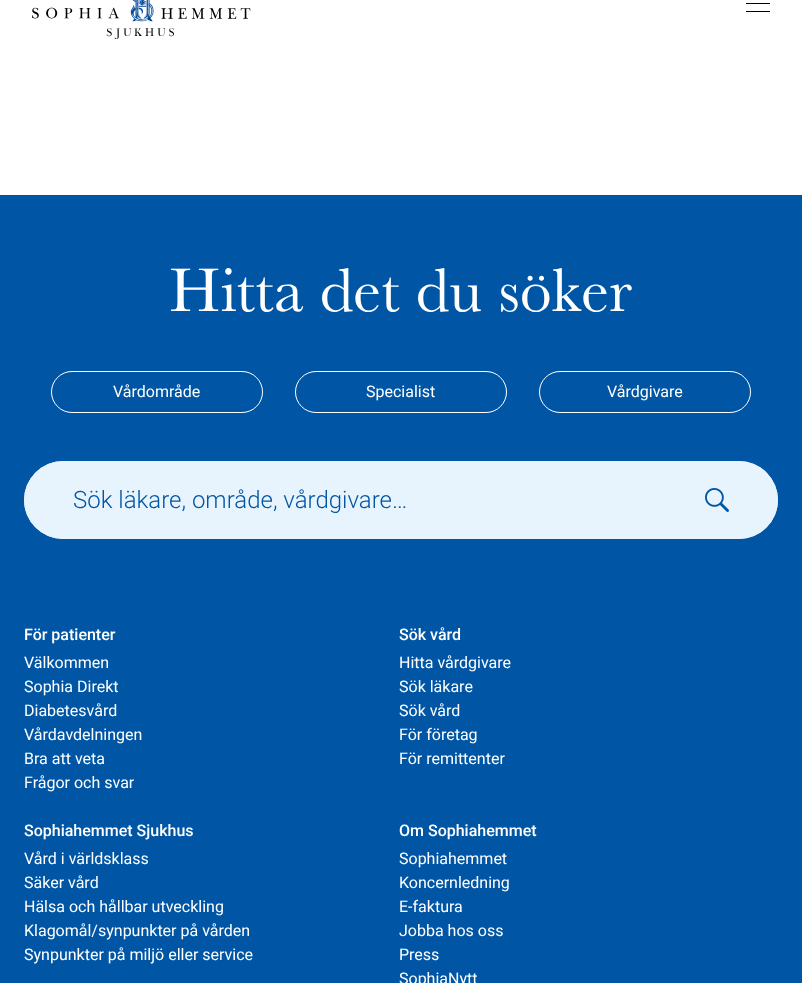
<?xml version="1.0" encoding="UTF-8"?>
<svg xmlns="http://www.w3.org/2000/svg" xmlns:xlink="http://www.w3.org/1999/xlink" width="802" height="983">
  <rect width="100%" height="100%" fill="#ffffff" />
  <image x="32" y="0" width="219" height="39" xlink:href="image1.png" />
  <rect x="746" y="3" width="24" height="1" fill="#000000" />
  <rect x="746" y="11" width="24" height="1" fill="#000000" />
  <rect y="195" width="802" height="788" fill="#0056a4" />
  <rect x="51.5" y="371.5" width="211" height="41" rx="20.5" fill="none" stroke="#ffffff" />
  <rect x="295.5" y="371.5" width="211" height="41" rx="20.5" fill="none" stroke="#ffffff" />
  <rect x="539.5" y="371.5" width="211" height="41" rx="20.5" fill="none" stroke="#ffffff" />
  <rect x="24" y="461" width="754" height="78" rx="39" fill="#e7f3fd" />
  <image x="705" y="488" width="24" height="24" xlink:href="image2.png" />
  <rect x="24.5" y="461.5" width="753" height="77" rx="38.5" fill="none" stroke="#e7f3fd" />
  <text x="169" y="311" style="font-family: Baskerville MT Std; font-size: 64px; fill: #ffffff">Hitta det du söker</text>
  <text x="113" y="397" style="font-family: Roboto; font-size: 16px; fill: #ffffff">Vårdområde</text>
  <text x="366" y="397" style="font-family: Roboto; font-size: 16px; fill: #ffffff">Specialist</text>
  <text x="607" y="397" style="font-family: Roboto; font-size: 16px; fill: #ffffff">Vårdgivare</text>
  <text x="73" y="508" style="font-family: Roboto; font-size: 24px; font-weight: 300; fill: #0056a4">Sök läkare, område, vårdgivare…</text>
  <text x="24" y="640" style="font-family: Roboto; font-size: 16px; font-weight: 500; fill: #ffffff">För patienter</text>
  <text x="24" y="668" style="font-family: Roboto; font-size: 16px; fill: #ffffff">Välkommen</text>
  <text x="24" y="692" style="font-family: Roboto; font-size: 16px; fill: #ffffff">Sophia Direkt</text>
  <text x="24" y="716" style="font-family: Roboto; font-size: 16px; fill: #ffffff">Diabetesvård</text>
  <text x="24" y="740" style="font-family: Roboto; font-size: 16px; fill: #ffffff">Vårdavdelningen</text>
  <text x="24" y="764" style="font-family: Roboto; font-size: 16px; fill: #ffffff">Bra att veta</text>
  <text x="24" y="788" style="font-family: Roboto; font-size: 16px; fill: #ffffff">Frågor och svar</text>
  <text x="399" y="640" style="font-family: Roboto; font-size: 16px; font-weight: 500; fill: #ffffff">Sök vård</text>
  <text x="399" y="668" style="font-family: Roboto; font-size: 16px; fill: #ffffff">Hitta vårdgivare</text>
  <text x="399" y="692" style="font-family: Roboto; font-size: 16px; fill: #ffffff">Sök läkare</text>
  <text x="399" y="716" style="font-family: Roboto; font-size: 16px; fill: #ffffff">Sök vård</text>
  <text x="399" y="740" style="font-family: Roboto; font-size: 16px; fill: #ffffff">För företag</text>
  <text x="399" y="764" style="font-family: Roboto; font-size: 16px; fill: #ffffff">För remittenter</text>
  <text x="24" y="836" style="font-family: Roboto; font-size: 16px; font-weight: 500; fill: #ffffff">Sophiahemmet Sjukhus</text>
  <text x="24" y="864" style="font-family: Roboto; font-size: 16px; fill: #ffffff">Vård i världsklass</text>
  <text x="24" y="888" style="font-family: Roboto; font-size: 16px; fill: #ffffff">Säker vård</text>
  <text x="24" y="912" style="font-family: Roboto; font-size: 16px; fill: #ffffff">Hälsa och hållbar utveckling</text>
  <text x="24" y="936" style="font-family: Roboto; font-size: 16px; fill: #ffffff">Klagomål/synpunkter på vården</text>
  <text x="24" y="960" style="font-family: Roboto; font-size: 16px; fill: #ffffff">Synpunkter på miljö eller service</text>
  <text x="399" y="836" style="font-family: Roboto; font-size: 16px; font-weight: 500; fill: #ffffff">Om Sophiahemmet</text>
  <text x="399" y="864" style="font-family: Roboto; font-size: 16px; fill: #ffffff">Sophiahemmet</text>
  <text x="399" y="888" style="font-family: Roboto; font-size: 16px; fill: #ffffff">Koncernledning</text>
  <text x="399" y="912" style="font-family: Roboto; font-size: 16px; fill: #ffffff">E-faktura</text>
  <text x="399" y="936" style="font-family: Roboto; font-size: 16px; fill: #ffffff">Jobba hos oss</text>
  <text x="399" y="960" style="font-family: Roboto; font-size: 16px; fill: #ffffff">Press</text>
  <text x="399" y="984" style="font-family: Roboto; font-size: 16px; fill: #ffffff">SophiaNytt</text>
</svg>
